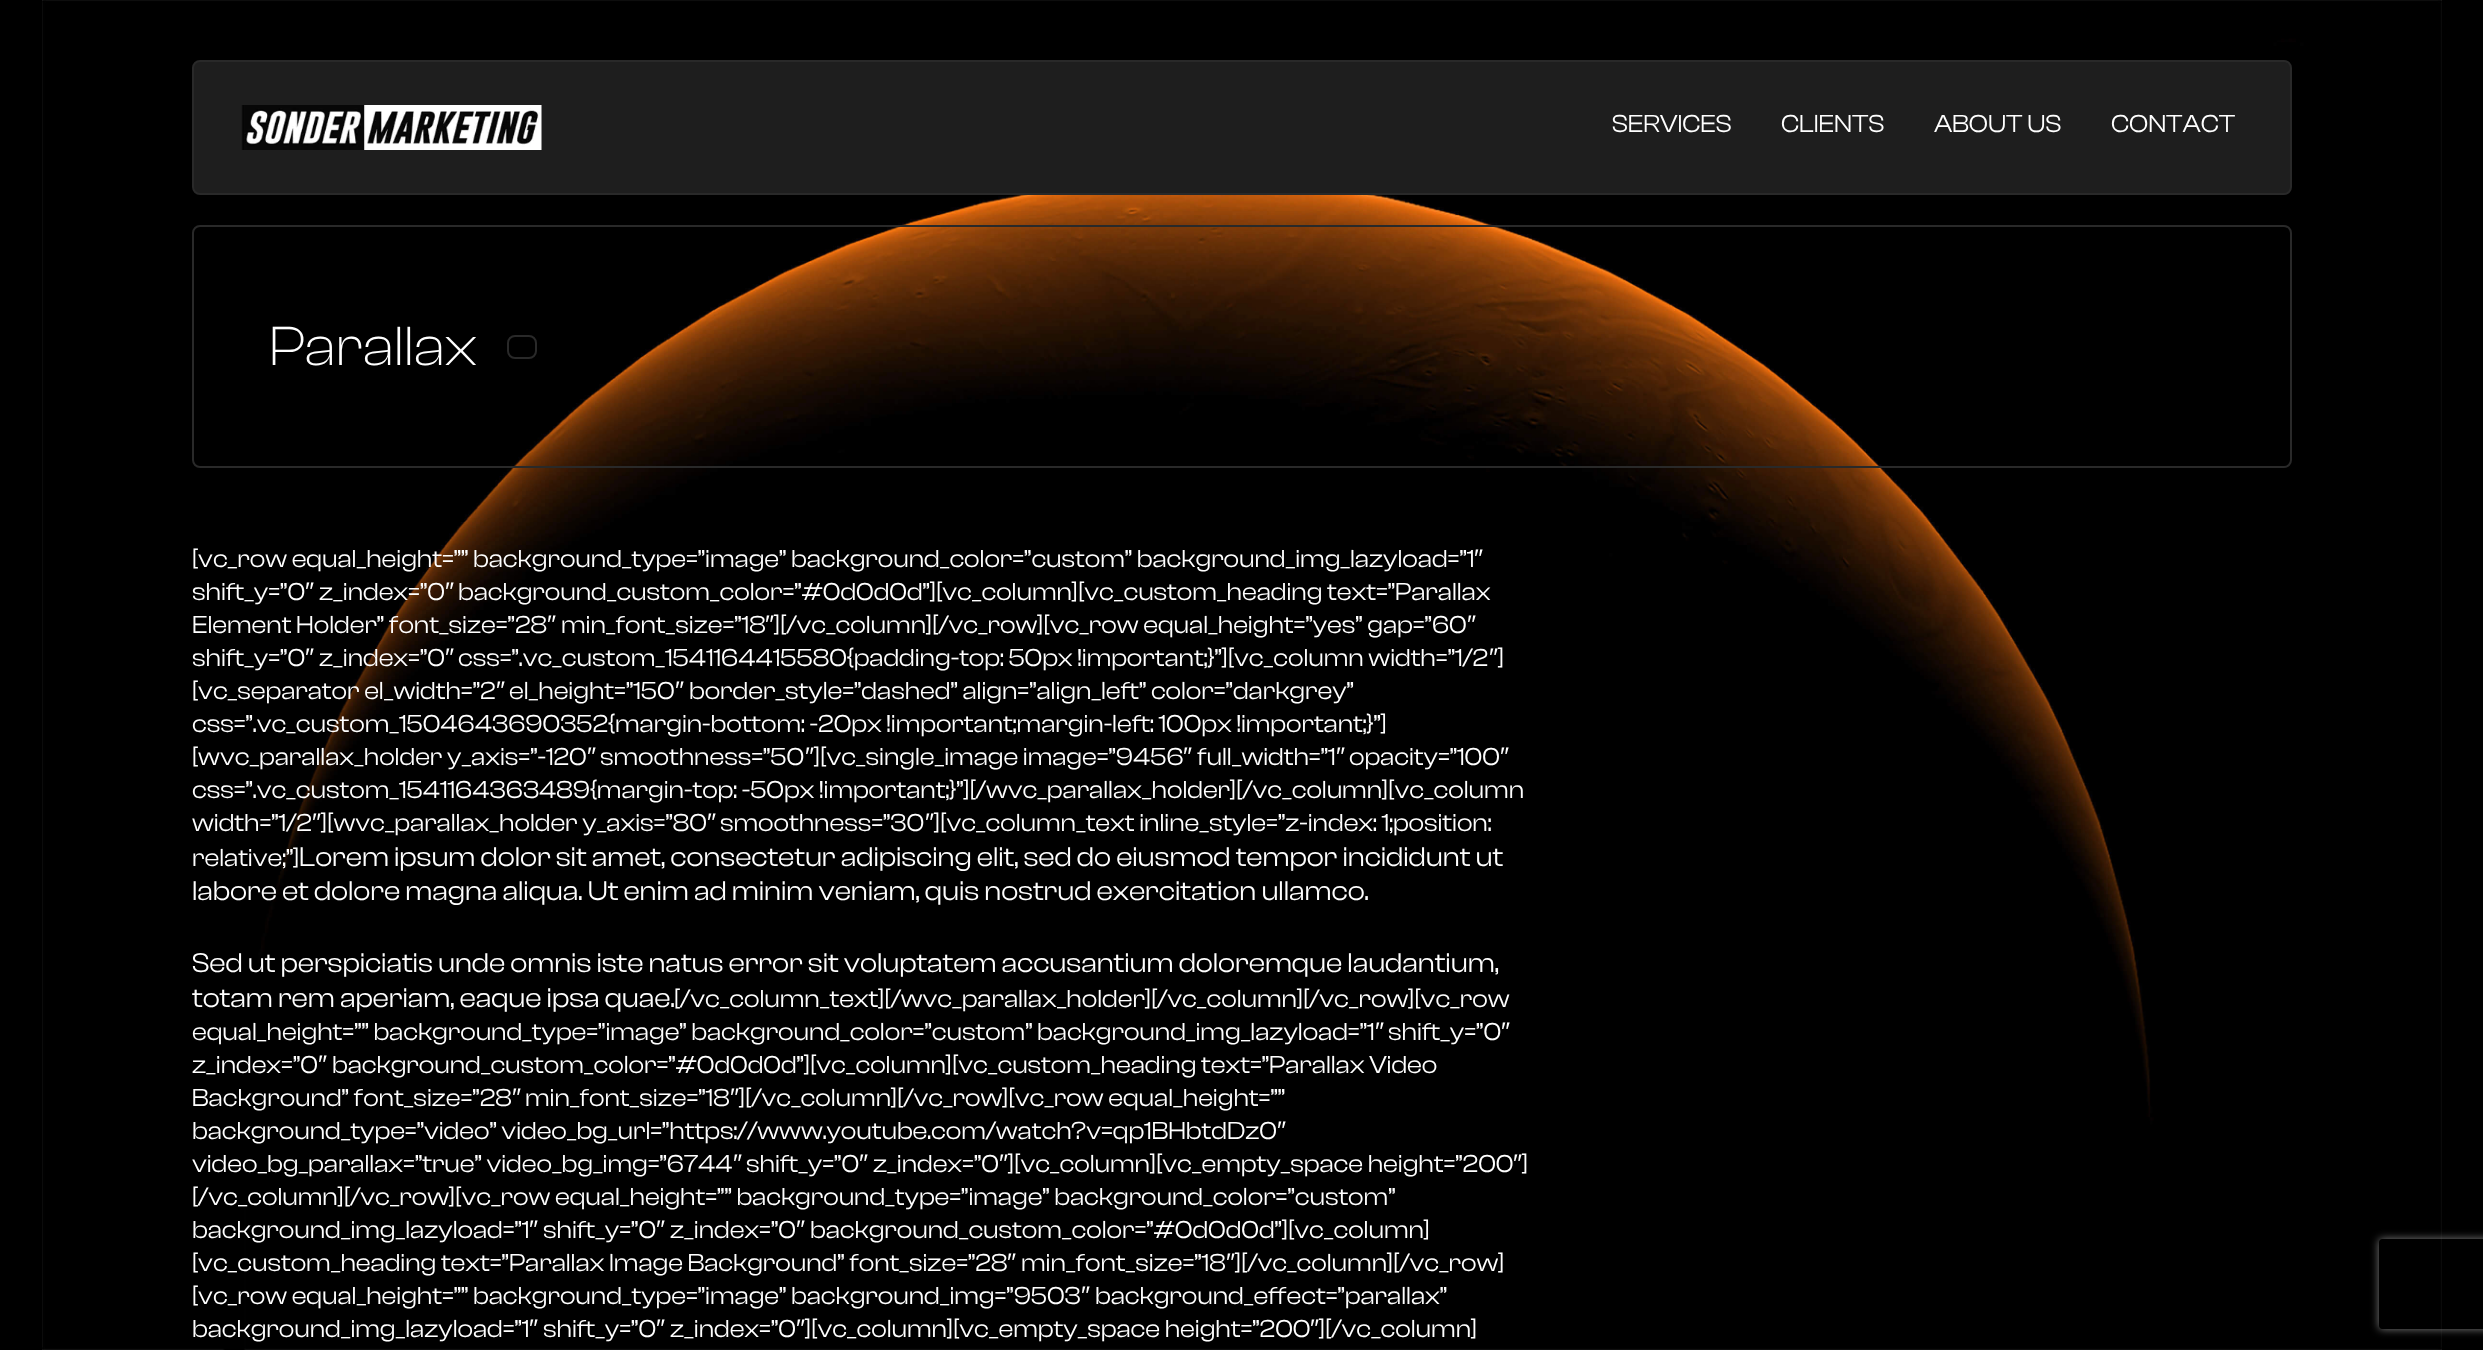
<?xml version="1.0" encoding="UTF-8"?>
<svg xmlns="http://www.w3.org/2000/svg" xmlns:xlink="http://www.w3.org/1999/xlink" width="2483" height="1350">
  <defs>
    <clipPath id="clip1"><path d="M 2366 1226 h 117 v 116 h -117 z m 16 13 h 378 c 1.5 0 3 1.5 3 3 v 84 c 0 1.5 -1.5 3 -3 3 h -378 c -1.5 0 -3 -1.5 -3 -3 v -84 c 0 -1.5 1.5 -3 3 -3 z" clip-rule="evenodd" /></clipPath>
  </defs>
  <rect width="100%" height="100%" fill="#000000" />
  <image x="42" y="0" width="2400" height="1350" xlink:href="image1.png" />
  <rect x="193" y="61" width="2098" height="133" rx="7" fill="#1e1e1e" stroke="#292929" stroke-width="2" />
  <image x="241" y="105" width="301" height="45" xlink:href="image2.png" />
  <rect x="193" y="226" width="2098" height="241" rx="7" fill="none" stroke="#292929" stroke-width="2" />
  <rect x="508" y="336" width="28" height="22" rx="7" fill="none" stroke="#292929" stroke-width="2" />
  <g clip-path="url(#clip1)">
    <rect x="2379" y="1239" width="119" height="90" rx="3" fill="#808080" filter="blur(4px)" />
  </g>
  <text x="1612" y="132" style="font-family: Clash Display; font-size: 25.5px; fill: #ffffff">SERVICES</text>
  <text x="1781" y="132" style="font-family: Clash Display; font-size: 25.5px; fill: #ffffff">CLIENTS</text>
  <text x="1934" y="132" style="font-family: Clash Display; font-size: 25.5px; fill: #ffffff">ABOUT US</text>
  <text x="2111" y="132" style="font-family: Clash Display; font-size: 25.5px; fill: #ffffff">CONTACT</text>
  <text x="269" y="365" style="font-family: Clash Display; font-size: 57px; font-weight: 300; fill: #ffffff">Parallax</text>
  <text x="192" y="567" style="font-family: Clash Display; font-size: 25.5px; fill: #ffffff">[vc_row equal_height=”” background_type=”image” background_color=”custom” background_img_lazyload=”1</text>
  <text x="1474" y="567" style="font-family: Liberation Sans; font-size: 25.5px; fill: #ffffff">″</text>
  <text x="192" y="600" style="font-family: Clash Display; font-size: 25.5px; fill: #ffffff">shift_y=”0</text>
  <text x="305" y="600" style="font-family: Liberation Sans; font-size: 25.5px; fill: #ffffff">″</text>
  <text x="319" y="600" style="font-family: Clash Display; font-size: 25.5px; fill: #ffffff">z_index=”0</text>
  <text x="445" y="600" style="font-family: Liberation Sans; font-size: 25.5px; fill: #ffffff">″</text>
  <text x="458" y="600" style="font-family: Clash Display; font-size: 25.5px; fill: #ffffff">background_custom_color=”#0d0d0d”][vc_column][vc_custom_heading text=”Parallax</text>
  <text x="192" y="633" style="font-family: Clash Display; font-size: 25.5px; fill: #ffffff">Element Holder” font_size=”28</text>
  <text x="547" y="633" style="font-family: Liberation Sans; font-size: 25.5px; fill: #ffffff">″</text>
  <text x="561" y="633" style="font-family: Clash Display; font-size: 25.5px; fill: #ffffff">min_font_size=”18</text>
  <text x="765" y="633" style="font-family: Liberation Sans; font-size: 25.5px; fill: #ffffff">″</text>
  <text x="774" y="633" style="font-family: Clash Display; font-size: 25.5px; fill: #ffffff">][/vc_column][/vc_row][vc_row equal_height=”yes” gap=”60</text>
  <text x="1467" y="633" style="font-family: Liberation Sans; font-size: 25.5px; fill: #ffffff">″</text>
  <text x="192" y="666" style="font-family: Clash Display; font-size: 25.5px; fill: #ffffff">shift_y=”0</text>
  <text x="305" y="666" style="font-family: Liberation Sans; font-size: 25.5px; fill: #ffffff">″</text>
  <text x="319" y="666" style="font-family: Clash Display; font-size: 25.5px; fill: #ffffff">z_index=”0</text>
  <text x="445" y="666" style="font-family: Liberation Sans; font-size: 25.5px; fill: #ffffff">″</text>
  <text x="458" y="666" style="font-family: Clash Display; font-size: 25.5px; fill: #ffffff">css=”.vc_custom_1541164415580{padding-top: 50px !important;}”][vc_column width=”1/2</text>
  <text x="1489" y="666" style="font-family: Liberation Sans; font-size: 25.5px; fill: #ffffff">″</text>
  <text x="1498" y="666" style="font-family: Clash Display; font-size: 25.5px; fill: #ffffff">]</text>
  <text x="192" y="699" style="font-family: Clash Display; font-size: 25.5px; fill: #ffffff">[vc_separator el_width=”2</text>
  <text x="496" y="699" style="font-family: Liberation Sans; font-size: 25.5px; fill: #ffffff">″</text>
  <text x="509" y="699" style="font-family: Clash Display; font-size: 25.5px; fill: #ffffff">el_height=”150</text>
  <text x="675" y="699" style="font-family: Liberation Sans; font-size: 25.5px; fill: #ffffff">″</text>
  <text x="689" y="699" style="font-family: Clash Display; font-size: 25.5px; fill: #ffffff">border_style=”dashed” align=”align_left” color=”darkgrey”</text>
  <text x="192" y="732" style="font-family: Clash Display; font-size: 25.5px; fill: #ffffff">css=”.vc_custom_1504643690352{margin-bottom: -20px !important;margin-left: 100px !important;}”]</text>
  <text x="192" y="765" style="font-family: Clash Display; font-size: 25.5px; fill: #ffffff">[wvc_parallax_holder y_axis=”-120</text>
  <text x="587" y="765" style="font-family: Liberation Sans; font-size: 25.5px; fill: #ffffff">″</text>
  <text x="600" y="765" style="font-family: Clash Display; font-size: 25.5px; fill: #ffffff">smoothness=”50</text>
  <text x="805" y="765" style="font-family: Liberation Sans; font-size: 25.5px; fill: #ffffff">″</text>
  <text x="814" y="765" style="font-family: Clash Display; font-size: 25.5px; fill: #ffffff">][vc_single_image image=”9456</text>
  <text x="1183" y="765" style="font-family: Liberation Sans; font-size: 25.5px; fill: #ffffff">″</text>
  <text x="1197" y="765" style="font-family: Clash Display; font-size: 25.5px; fill: #ffffff">full_width=”1</text>
  <text x="1336" y="765" style="font-family: Liberation Sans; font-size: 25.5px; fill: #ffffff">″</text>
  <text x="1349" y="765" style="font-family: Clash Display; font-size: 25.5px; fill: #ffffff">opacity=”100</text>
  <text x="1500" y="765" style="font-family: Liberation Sans; font-size: 25.5px; fill: #ffffff">″</text>
  <text x="192" y="798" style="font-family: Clash Display; font-size: 25.5px; fill: #ffffff">css=”.vc_custom_1541164363489{margin-top: -50px !important;}”][/wvc_parallax_holder][/vc_column][vc_column</text>
  <text x="192" y="831" style="font-family: Clash Display; font-size: 25.5px; fill: #ffffff">width=”1/2</text>
  <text x="312" y="831" style="font-family: Liberation Sans; font-size: 25.5px; fill: #ffffff">″</text>
  <text x="321" y="831" style="font-family: Clash Display; font-size: 25.5px; fill: #ffffff">][wvc_parallax_holder y_axis=”80</text>
  <text x="707" y="831" style="font-family: Liberation Sans; font-size: 25.5px; fill: #ffffff">″</text>
  <text x="720" y="831" style="font-family: Clash Display; font-size: 25.5px; fill: #ffffff">smoothness=”30</text>
  <text x="925" y="831" style="font-family: Liberation Sans; font-size: 25.5px; fill: #ffffff">″</text>
  <text x="934" y="831" style="font-family: Clash Display; font-size: 25.5px; fill: #ffffff">][vc_column_text inline_style=”z-index: 1;position:</text>
  <text x="192" y="866" style="font-family: Clash Display; font-size: 25.5px; fill: #ffffff">relative;”]</text>
  <text x="299" y="866" style="font-family: Clash Display; font-size: 28px; fill: #ffffff">Lorem ipsum dolor sit amet, consectetur adipiscing elit, sed do eiusmod tempor incididunt ut</text>
  <text x="192" y="900" style="font-family: Clash Display; font-size: 28px; fill: #ffffff">labore et dolore magna aliqua. Ut enim ad minim veniam, quis nostrud exercitation ullamco.</text>
  <text x="192" y="972" style="font-family: Clash Display; font-size: 28px; fill: #ffffff">Sed ut perspiciatis unde omnis iste natus error sit voluptatem accusantium doloremque laudantium,</text>
  <text x="192" y="1007" style="font-family: Clash Display; font-size: 28px; fill: #ffffff">totam rem aperiam, eaque ipsa quae.</text>
  <text x="674" y="1007" style="font-family: Clash Display; font-size: 25.5px; fill: #ffffff">[/vc_column_text][/wvc_parallax_holder][/vc_column][/vc_row][vc_row</text>
  <text x="192" y="1040" style="font-family: Clash Display; font-size: 25.5px; fill: #ffffff">equal_height=”” background_type=”image” background_color=”custom” background_img_lazyload=”1</text>
  <text x="1375" y="1040" style="font-family: Liberation Sans; font-size: 25.5px; fill: #ffffff">″</text>
  <text x="1388" y="1040" style="font-family: Clash Display; font-size: 25.5px; fill: #ffffff">shift_y=”0</text>
  <text x="1501" y="1040" style="font-family: Liberation Sans; font-size: 25.5px; fill: #ffffff">″</text>
  <text x="192" y="1073" style="font-family: Clash Display; font-size: 25.5px; fill: #ffffff">z_index=”0</text>
  <text x="318" y="1073" style="font-family: Liberation Sans; font-size: 25.5px; fill: #ffffff">″</text>
  <text x="332" y="1073" style="font-family: Clash Display; font-size: 25.5px; fill: #ffffff">background_custom_color=”#0d0d0d”][vc_column][vc_custom_heading text=”Parallax Video</text>
  <text x="192" y="1106" style="font-family: Clash Display; font-size: 25.5px; fill: #ffffff">Background” font_size=”28</text>
  <text x="512" y="1106" style="font-family: Liberation Sans; font-size: 25.5px; fill: #ffffff">″</text>
  <text x="525" y="1106" style="font-family: Clash Display; font-size: 25.5px; fill: #ffffff">min_font_size=”18</text>
  <text x="730" y="1106" style="font-family: Liberation Sans; font-size: 25.5px; fill: #ffffff">″</text>
  <text x="739" y="1106" style="font-family: Clash Display; font-size: 25.5px; fill: #ffffff">][/vc_column][/vc_row][vc_row equal_height=””</text>
  <text x="192" y="1139" style="font-family: Clash Display; font-size: 25.5px; fill: #ffffff">background_type=”video” video_bg_url=”https://www.youtube.com/watch?v=qp1BHbtdDz0</text>
  <text x="1277" y="1139" style="font-family: Liberation Sans; font-size: 25.5px; fill: #ffffff">″</text>
  <text x="192" y="1172" style="font-family: Clash Display; font-size: 25.5px; fill: #ffffff">video_bg_parallax=”true” video_bg_img=”6744</text>
  <text x="733" y="1172" style="font-family: Liberation Sans; font-size: 25.5px; fill: #ffffff">″</text>
  <text x="746" y="1172" style="font-family: Clash Display; font-size: 25.5px; fill: #ffffff">shift_y=”0</text>
  <text x="859" y="1172" style="font-family: Liberation Sans; font-size: 25.5px; fill: #ffffff">″</text>
  <text x="873" y="1172" style="font-family: Clash Display; font-size: 25.5px; fill: #ffffff">z_index=”0</text>
  <text x="999" y="1172" style="font-family: Liberation Sans; font-size: 25.5px; fill: #ffffff">″</text>
  <text x="1008" y="1172" style="font-family: Clash Display; font-size: 25.5px; fill: #ffffff">][vc_column][vc_empty_space height=”200</text>
  <text x="1513" y="1172" style="font-family: Liberation Sans; font-size: 25.5px; fill: #ffffff">″</text>
  <text x="1522" y="1172" style="font-family: Clash Display; font-size: 25.5px; fill: #ffffff">]</text>
  <text x="192" y="1205" style="font-family: Clash Display; font-size: 25.5px; fill: #ffffff">[/vc_column][/vc_row][vc_row equal_height=”” background_type=”image” background_color=”custom”</text>
  <text x="192" y="1238" style="font-family: Clash Display; font-size: 25.5px; fill: #ffffff">background_img_lazyload=”1</text>
  <text x="529" y="1238" style="font-family: Liberation Sans; font-size: 25.5px; fill: #ffffff">″</text>
  <text x="543" y="1238" style="font-family: Clash Display; font-size: 25.5px; fill: #ffffff">shift_y=”0</text>
  <text x="656" y="1238" style="font-family: Liberation Sans; font-size: 25.5px; fill: #ffffff">″</text>
  <text x="670" y="1238" style="font-family: Clash Display; font-size: 25.5px; fill: #ffffff">z_index=”0</text>
  <text x="796" y="1238" style="font-family: Liberation Sans; font-size: 25.5px; fill: #ffffff">″</text>
  <text x="810" y="1238" style="font-family: Clash Display; font-size: 25.5px; fill: #ffffff">background_custom_color=”#0d0d0d”][vc_column]</text>
  <text x="192" y="1271" style="font-family: Clash Display; font-size: 25.5px; fill: #ffffff">[vc_custom_heading text=”Parallax Image Background” font_size=”28</text>
  <text x="1007" y="1271" style="font-family: Liberation Sans; font-size: 25.5px; fill: #ffffff">″</text>
  <text x="1021" y="1271" style="font-family: Clash Display; font-size: 25.5px; fill: #ffffff">min_font_size=”18</text>
  <text x="1226" y="1271" style="font-family: Liberation Sans; font-size: 25.5px; fill: #ffffff">″</text>
  <text x="1235" y="1271" style="font-family: Clash Display; font-size: 25.5px; fill: #ffffff">][/vc_column][/vc_row]</text>
  <text x="192" y="1304" style="font-family: Clash Display; font-size: 25.5px; fill: #ffffff">[vc_row equal_height=”” background_type=”image” background_img=”9503</text>
  <text x="1081" y="1304" style="font-family: Liberation Sans; font-size: 25.5px; fill: #ffffff">″</text>
  <text x="1095" y="1304" style="font-family: Clash Display; font-size: 25.5px; fill: #ffffff">background_effect=”parallax”</text>
  <text x="192" y="1337" style="font-family: Clash Display; font-size: 25.5px; fill: #ffffff">background_img_lazyload=”1</text>
  <text x="529" y="1337" style="font-family: Liberation Sans; font-size: 25.5px; fill: #ffffff">″</text>
  <text x="543" y="1337" style="font-family: Clash Display; font-size: 25.5px; fill: #ffffff">shift_y=”0</text>
  <text x="656" y="1337" style="font-family: Liberation Sans; font-size: 25.5px; fill: #ffffff">″</text>
  <text x="670" y="1337" style="font-family: Clash Display; font-size: 25.5px; fill: #ffffff">z_index=”0</text>
  <text x="796" y="1337" style="font-family: Liberation Sans; font-size: 25.5px; fill: #ffffff">″</text>
  <text x="805" y="1337" style="font-family: Clash Display; font-size: 25.5px; fill: #ffffff">][vc_column][vc_empty_space height=”200</text>
  <text x="1310" y="1337" style="font-family: Liberation Sans; font-size: 25.5px; fill: #ffffff">″</text>
  <text x="1319" y="1337" style="font-family: Clash Display; font-size: 25.5px; fill: #ffffff">][/vc_column]</text>
</svg>
